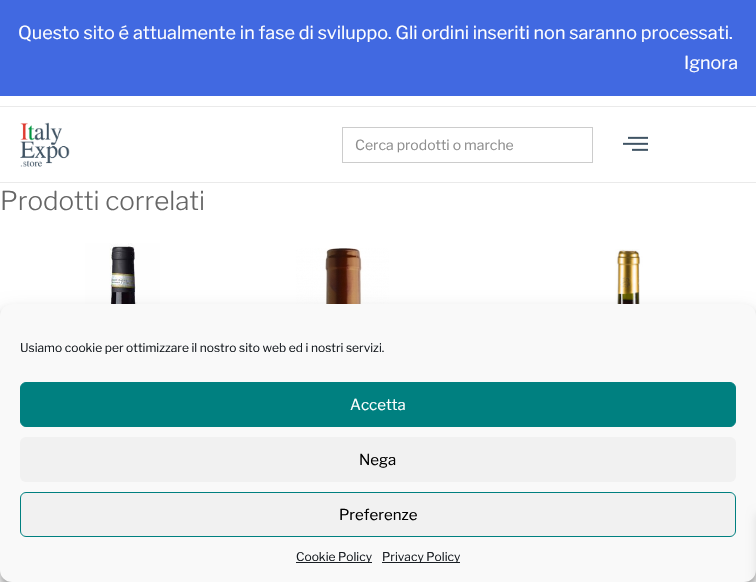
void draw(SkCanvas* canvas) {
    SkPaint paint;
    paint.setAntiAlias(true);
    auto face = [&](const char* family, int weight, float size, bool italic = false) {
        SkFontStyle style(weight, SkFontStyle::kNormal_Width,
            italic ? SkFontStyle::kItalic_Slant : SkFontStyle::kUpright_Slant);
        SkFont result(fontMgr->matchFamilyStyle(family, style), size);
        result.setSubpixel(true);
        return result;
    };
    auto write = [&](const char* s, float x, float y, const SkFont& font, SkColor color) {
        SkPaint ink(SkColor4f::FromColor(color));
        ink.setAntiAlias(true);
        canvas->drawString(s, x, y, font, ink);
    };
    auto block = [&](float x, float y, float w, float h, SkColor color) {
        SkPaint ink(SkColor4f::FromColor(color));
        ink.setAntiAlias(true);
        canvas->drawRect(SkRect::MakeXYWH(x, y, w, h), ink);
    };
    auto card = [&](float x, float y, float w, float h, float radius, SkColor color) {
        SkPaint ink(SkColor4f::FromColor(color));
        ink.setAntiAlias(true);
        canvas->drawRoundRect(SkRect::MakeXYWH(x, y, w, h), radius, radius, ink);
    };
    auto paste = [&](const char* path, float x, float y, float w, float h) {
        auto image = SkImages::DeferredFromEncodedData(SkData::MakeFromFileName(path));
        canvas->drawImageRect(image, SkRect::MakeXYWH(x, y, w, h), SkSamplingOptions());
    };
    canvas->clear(SK_ColorWHITE);
    block(0, 0, 756, 96, SkColorSetRGB(65, 105, 225));
    auto kFont1 = face("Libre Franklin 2", 100, 18);
    write("Questo sito é attualmente in fase di sviluppo. Gli ordini inseriti non saranno processati.", 18, 39, kFont1, SK_ColorWHITE);
    write("Ignora", 684, 69, kFont1, SK_ColorWHITE);
    block(0, 106, 756, 1, SkColorSetRGB(234, 234, 234));
    block(0, 182, 756, 1, SkColorSetRGB(234, 234, 234));
    paste("pic1.png", 20, 122, 50, 45);
    paint.setStyle(SkPaint::kStroke_Style);
    paint.setStrokeWidth(1);
    paint.setColor(SkColorSetRGB(204, 204, 204));
    canvas->drawRect(SkRect::MakeXYWH(342.5f, 127.5f, 250, 35), paint);
    auto kFont2 = face("Libre Franklin 2", 100, 14);
    write("Cerca prodotti o marche", 355, 150, kFont2, SkColorSetRGB(142, 142, 142));
    paste("pic2.png", 623, 136, 25, 15);
    auto kFont3 = face("Libre Franklin", 100, 26);
    write("Prodotti correlati", 0, 210, kFont3, SkColorSetRGB(102, 102, 102));
    paste("pic3.png", 85, 243, 75, 61);
    paste("pic4.png", 296, 248, 93, 56);
    paste("pic5.png", 538, 249, 181, 55);
    paint.setStyle(SkPaint::kFill_Style);
    paint.setColor(SkColorSetARGB(59, 0, 0, 0));
    paint.setMaskFilter(SkMaskFilter::MakeBlur(kNormal_SkBlurStyle, 3));
    canvas->drawRoundRect(SkRect::MakeXYWH(0, 310, 756, 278), 12, 12, paint);
    paint.setMaskFilter(nullptr);
    paint.setColor(SkColorSetARGB(48, 0, 0, 0));
    paint.setMaskFilter(SkMaskFilter::MakeBlur(kNormal_SkBlurStyle, 10));
    canvas->drawRoundRect(SkRect::MakeXYWH(0, 314, 756, 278), 12, 12, paint);
    paint.setMaskFilter(nullptr);
    card(0, 304, 756, 278, 12, SkColorSetRGB(249, 249, 249));
    auto kFont4 = face("Libre Franklin 2", 100, 12);
    write("Usiamo cookie per ottimizzare il nostro sito web ed i nostri servizi.", 20, 352, kFont4, SkColorSetRGB(25, 30, 35));
    paint.setColor(SkColorSetRGB(0, 128, 128));
    canvas->drawRoundRect(SkRect::MakeXYWH(20.5f, 382.5f, 715, 44), 5.5f, 5.5f, paint);
    paint.setStyle(SkPaint::kStroke_Style);
    canvas->drawRoundRect(SkRect::MakeXYWH(20.5f, 382.5f, 715, 44), 5.5f, 5.5f, paint);
    auto kFont5 = face("Libre Franklin 2", 100, 15);
    write("Accetta", 350, 410, kFont5, SK_ColorWHITE);
    card(20, 437, 716, 45, 6, SkColorSetRGB(241, 241, 241));
    write("Nega", 359, 465, kFont5, SK_ColorBLACK);
    paint.setStyle(SkPaint::kFill_Style);
    paint.setColor(SkColorSetRGB(241, 241, 241));
    canvas->drawRoundRect(SkRect::MakeXYWH(20.5f, 492.5f, 715, 44), 5.5f, 5.5f, paint);
    paint.setStyle(SkPaint::kStroke_Style);
    paint.setColor(SkColorSetRGB(0, 128, 128));
    canvas->drawRoundRect(SkRect::MakeXYWH(20.5f, 492.5f, 715, 44), 5.5f, 5.5f, paint);
    write("Preferenze", 339, 520, kFont5, SK_ColorBLACK);
    block(296, 562, 76, 1, SkColorSetRGB(25, 30, 35));
    write("Cookie Policy", 296, 561, kFont4, SkColorSetRGB(25, 30, 35));
    block(382, 562, 78, 1, SkColorSetRGB(25, 30, 35));
    write("Privacy Policy", 382, 561, kFont4, SkColorSetRGB(25, 30, 35));
    paint.setStyle(SkPaint::kFill_Style);
    paint.setColor(SkColorSetARGB(26, 0, 0, 0));
    paint.setMaskFilter(SkMaskFilter::MakeBlur(kNormal_SkBlurStyle, 5));
    canvas->drawRect(SkRect::MakeXYWH(756, 514, 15, 67), paint);
    paint.setMaskFilter(nullptr);
}
